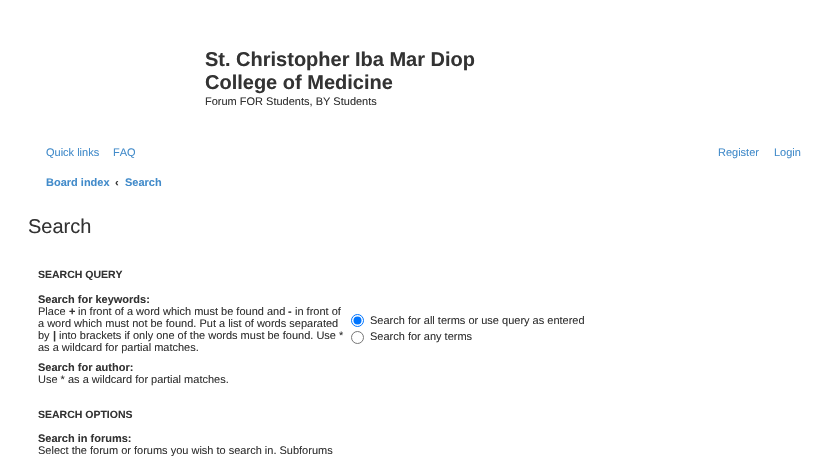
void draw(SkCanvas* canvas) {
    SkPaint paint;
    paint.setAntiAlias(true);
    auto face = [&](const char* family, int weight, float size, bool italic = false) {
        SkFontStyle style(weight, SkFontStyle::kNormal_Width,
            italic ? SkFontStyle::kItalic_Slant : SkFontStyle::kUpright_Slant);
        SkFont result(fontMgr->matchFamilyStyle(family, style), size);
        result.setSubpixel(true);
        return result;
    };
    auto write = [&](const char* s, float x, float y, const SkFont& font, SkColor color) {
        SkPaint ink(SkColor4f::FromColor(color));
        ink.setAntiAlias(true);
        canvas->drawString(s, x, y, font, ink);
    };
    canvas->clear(SK_ColorWHITE);
    auto kFont1 = face("Liberation Sans", 700, 20);
    write("St. Christopher Iba Mar Diop", 205, 66, kFont1, SkColorSetRGB(51, 51, 51));
    write("College of Medicine", 205, 89, kFont1, SkColorSetRGB(51, 51, 51));
    auto kFont2 = face("Liberation Sans", 400, 11);
    write("Forum FOR Students, BY Students", 205, 105, kFont2, SkColorSetRGB(51, 51, 51));
    write("Quick links", 46, 156, kFont2, SkColorSetRGB(66, 139, 202));
    write("FAQ", 113, 156, kFont2, SkColorSetRGB(66, 139, 202));
    write("Register", 718, 156, kFont2, SkColorSetRGB(66, 139, 202));
    write("Login", 774, 156, kFont2, SkColorSetRGB(66, 139, 202));
    auto kFont3 = face("Liberation Sans", 700, 11);
    write("Board index", 46, 186, kFont3, SkColorSetRGB(66, 139, 202));
    write("‹", 115, 186, kFont3, SkColorSetRGB(51, 51, 51));
    write("Search", 125, 186, kFont3, SkColorSetRGB(66, 139, 202));
    auto kFont4 = face("Liberation Sans", 400, 20);
    write("Search", 28, 233, kFont4, SkColorSetRGB(51, 51, 51));
    auto kFont5 = face("Liberation Sans", 700, 10.5f);
    write("SEARCH QUERY", 38, 278, kFont5, SkColorSetRGB(51, 51, 51));
    write("Search for keywords:", 38, 303, kFont3, SkColorSetRGB(51, 51, 51));
    write("Place", 38, 315, kFont2, SkColorSetRGB(51, 51, 51));
    write("+", 69, 315, kFont3, SkColorSetRGB(51, 51, 51));
    write("in front of a word which must be found and", 78, 315, kFont2, SkColorSetRGB(51, 51, 51));
    write("-", 288, 315, kFont3, SkColorSetRGB(51, 51, 51));
    write("in front of", 295, 315, kFont2, SkColorSetRGB(51, 51, 51));
    write("a word which must not be found. Put a list of words separated", 38, 327, kFont2, SkColorSetRGB(51, 51, 51));
    write("by", 38, 339, kFont2, SkColorSetRGB(51, 51, 51));
    write("|", 53, 339, kFont3, SkColorSetRGB(51, 51, 51));
    write("into brackets if only one of the words must be found. Use *", 59, 339, kFont2, SkColorSetRGB(51, 51, 51));
    write("as a wildcard for partial matches.", 38, 351, kFont2, SkColorSetRGB(51, 51, 51));
    paint.setStyle(SkPaint::kStroke_Style);
    paint.setStrokeWidth(1);
    paint.setColor(SkColorSetRGB(0, 117, 255));
    canvas->drawCircle(357.5f, 320.5f, 6, paint);
    paint.setStyle(SkPaint::kFill_Style);
    canvas->drawCircle(357.5f, 320.5f, 4, paint);
    write("Search for all terms or use query as entered", 370, 324, kFont2, SkColorSetRGB(51, 51, 51));
    paint.setStyle(SkPaint::kStroke_Style);
    paint.setColor(SkColorSetRGB(118, 118, 118));
    canvas->drawCircle(357.5f, 337.5f, 6, paint);
    write("Search for any terms", 370, 340, kFont2, SkColorSetRGB(51, 51, 51));
    write("Search for author:", 38, 371, kFont3, SkColorSetRGB(51, 51, 51));
    write("Use * as a wildcard for partial matches.", 38, 383, kFont2, SkColorSetRGB(51, 51, 51));
    write("SEARCH OPTIONS", 38, 418, kFont5, SkColorSetRGB(51, 51, 51));
    write("Search in forums:", 38, 442, kFont3, SkColorSetRGB(51, 51, 51));
    write("Select the forum or forums you wish to search in. Subforums", 38, 454, kFont2, SkColorSetRGB(51, 51, 51));
}
